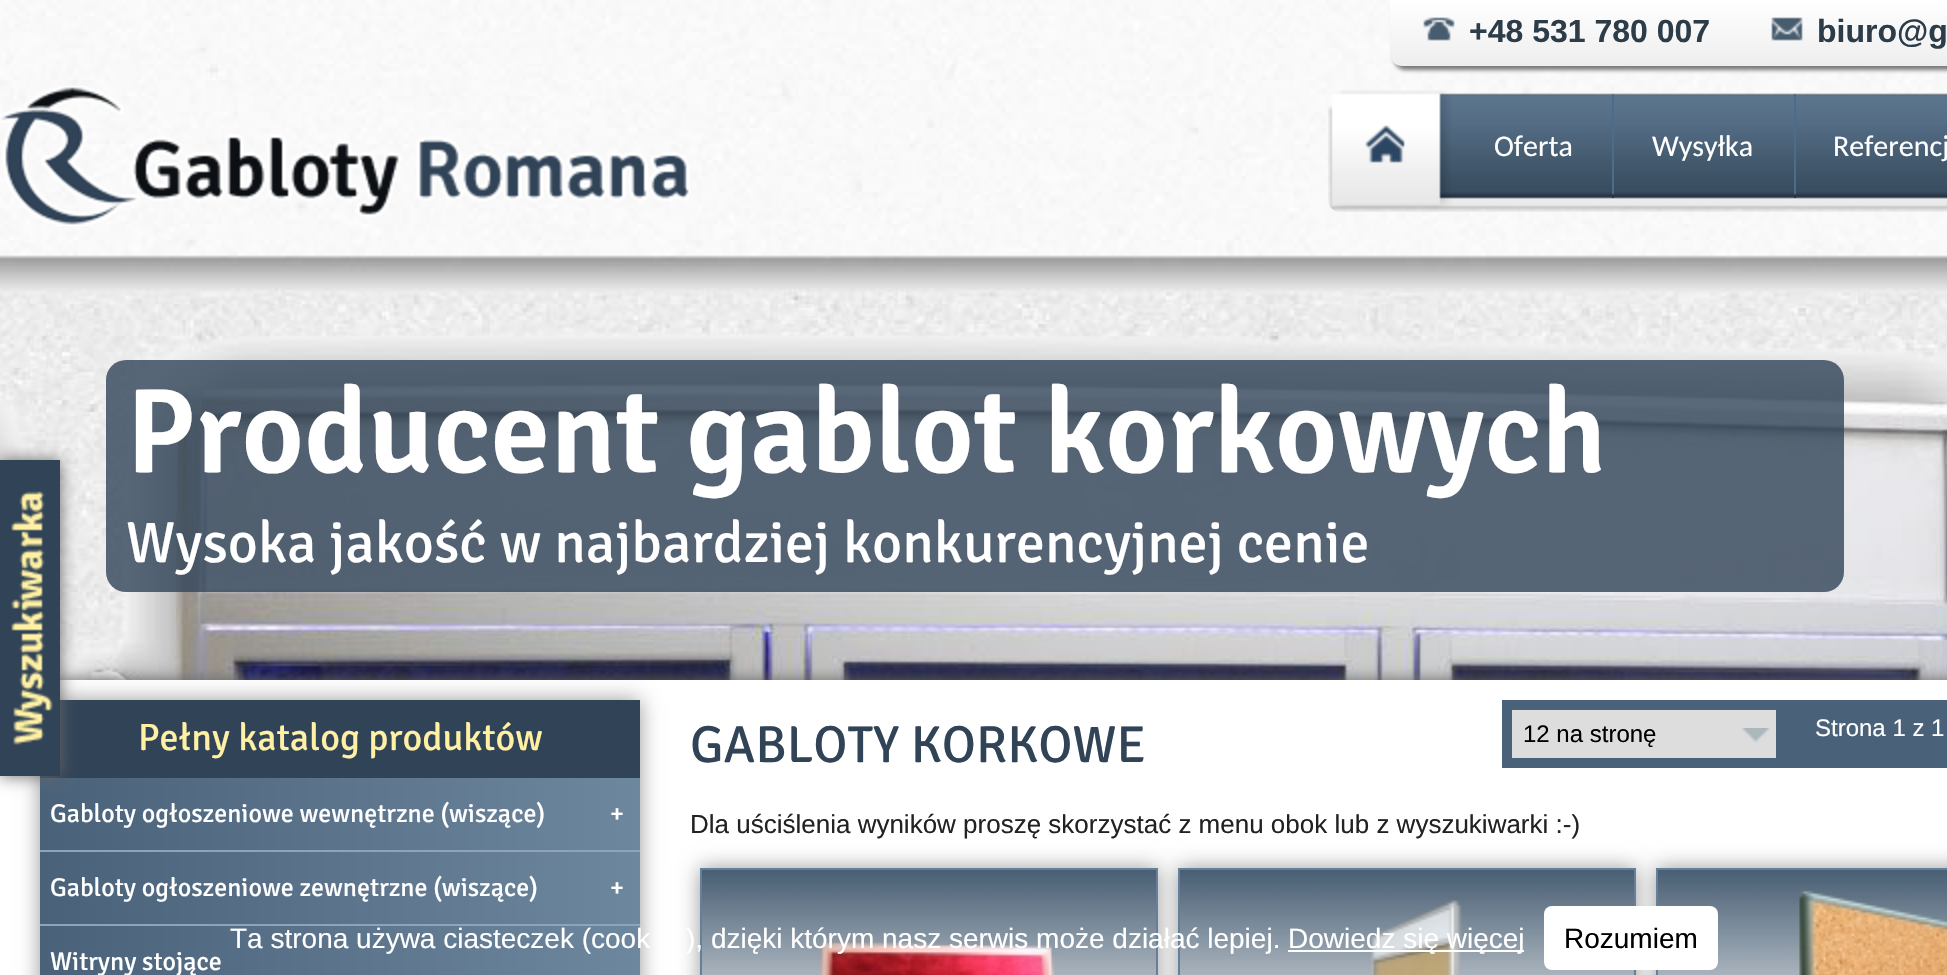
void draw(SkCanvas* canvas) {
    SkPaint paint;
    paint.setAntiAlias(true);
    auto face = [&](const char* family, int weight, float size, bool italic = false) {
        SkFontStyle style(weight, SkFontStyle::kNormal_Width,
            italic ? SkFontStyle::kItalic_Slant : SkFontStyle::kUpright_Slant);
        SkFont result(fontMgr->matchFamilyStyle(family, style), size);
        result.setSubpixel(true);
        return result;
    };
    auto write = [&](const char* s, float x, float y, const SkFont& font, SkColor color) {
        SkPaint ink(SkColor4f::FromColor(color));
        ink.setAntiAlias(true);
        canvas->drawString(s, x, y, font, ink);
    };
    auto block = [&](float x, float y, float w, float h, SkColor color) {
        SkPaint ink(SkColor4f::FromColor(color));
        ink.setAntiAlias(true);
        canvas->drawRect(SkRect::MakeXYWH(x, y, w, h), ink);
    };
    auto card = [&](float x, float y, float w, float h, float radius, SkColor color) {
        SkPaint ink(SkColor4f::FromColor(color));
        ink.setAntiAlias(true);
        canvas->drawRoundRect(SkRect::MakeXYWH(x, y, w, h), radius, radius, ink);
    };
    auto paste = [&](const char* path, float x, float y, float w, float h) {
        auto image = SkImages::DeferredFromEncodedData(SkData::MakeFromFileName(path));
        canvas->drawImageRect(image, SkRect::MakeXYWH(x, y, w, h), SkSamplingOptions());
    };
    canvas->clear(SK_ColorWHITE);
    paste("pic12.png", 0, 0, 1947, 680);
    paint.setColor(SkColorSetRGB(119, 119, 119));
    paint.setMaskFilter(SkMaskFilter::MakeBlur(kNormal_SkBlurStyle, 2));
    canvas->drawRoundRect(SkRect::MakeXYWH(1394, 4, 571, 66), 12, 12, paint);
    paint.setMaskFilter(nullptr);
    {
        const SkColor colors[] = {SK_ColorWHITE, SkColorSetRGB(238, 238, 238)};
        const float stops[] = {0, 1};
        const SkPoint ends[] = {{1785, 0}, {1785, 66}};
        paint.setShader(SkGradientShader::MakeLinear(ends, colors, stops, 2, SkTileMode::kClamp));
        paint.setAlpha(255);
    }
    canvas->drawPath(SkPathBuilder().moveTo(1390, 0).lineTo(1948, 0).lineTo(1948, 66).lineTo(1402, 66).cubicTo(1395.5f, 66, 1390, 60.5f, 1390, 54).close().detach(), paint);
    paste("pic1.png", 1423, 17, 32, 24);
    auto kFont1 = face("Liberation Sans", 700, 32);
    write("+48 531 780 007", 1469, 42, kFont1, SkColorSetRGB(44, 60, 73));
    paste("pic2.png", 1771, 17, 32, 24);
    write("biuro@g", 1817, 42, kFont1, SkColorSetRGB(44, 60, 73));
    paste("pic3.png", 0, 86, 690, 140);
    paste("pic4.png", 1454, 93, 493, 119);
    paste("pic5.png", 1328, 90, 126, 122);
    auto kFont2 = face("Carlito", 400, 30);
    write("Oferta", 1494, 156, kFont2, SK_ColorWHITE);
    paste("pic6.png", 1612, 94, 2, 104);
    write("Wysyłka", 1652, 156, kFont2, SK_ColorWHITE);
    paste("pic6.png", 1794, 94, 2, 104);
    write("Referencj", 1833, 156, kFont2, SK_ColorWHITE);
    paint.setShader(nullptr);
    paint.setColor(SkColorSetRGB(102, 102, 102));
    paint.setMaskFilter(SkMaskFilter::MakeBlur(kNormal_SkBlurStyle, 8));
    canvas->drawRoundRect(SkRect::MakeXYWH(0, 680, 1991, 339), 20, 20, paint);
    paint.setMaskFilter(nullptr);
    block(0, 680, 1947, 295, SK_ColorWHITE);
    canvas->save();
    canvas->clipPath(SkPathBuilder().moveTo(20, 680).lineTo(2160, 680).cubicTo(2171, 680, 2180, 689, 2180, 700).lineTo(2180, 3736).cubicTo(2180, 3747, 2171, 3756, 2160, 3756).lineTo(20, 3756).cubicTo(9, 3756, 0, 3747, 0, 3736).lineTo(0, 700).cubicTo(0, 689, 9, 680, 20, 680).close().detach(), true);
    paint.setColor(SkColorSetRGB(153, 153, 153));
    paint.setMaskFilter(SkMaskFilter::MakeBlur(kNormal_SkBlurStyle, 10));
    canvas->drawRect(SkRect::MakeXYWH(40, 700, 600, 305), paint);
    paint.setMaskFilter(nullptr);
    canvas->restore();
    block(40, 700, 600, 78, SkColorSetRGB(49, 67, 87));
    auto kFont3 = face("Signika", 400, 38);
    write("Pełny katalog produktów", 138, 750, kFont3, SkColorSetRGB(255, 240, 164));
    {
        const SkColor colors[] = {SkColorSetRGB(74, 98, 121), SkColorSetRGB(109, 135, 158)};
        const float stops[] = {0, 1};
        const SkPoint ends[] = {{40, 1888}, {640, 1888}};
        paint.setShader(SkGradientShader::MakeLinear(ends, colors, stops, 2, SkTileMode::kClamp));
        paint.setAlpha(255);
    }
    canvas->drawRect(SkRect::MakeXYWH(40, 778, 600, 197), paint);
    block(40, 850, 600, 2, SkColorSetRGB(142, 164, 183));
    auto kFont4 = face("Signika", 400, 26);
    write("Gabloty ogłoszeniowe wewnętrzne (wiszące)", 50, 822, kFont4, SK_ColorWHITE);
    write("+", 610, 822, kFont4, SK_ColorWHITE);
    block(40, 924, 600, 2, SkColorSetRGB(142, 164, 183));
    write("Gabloty ogłoszeniowe zewnętrzne (wiszące)", 50, 896, kFont4, SK_ColorWHITE);
    write("+", 610, 896, kFont4, SK_ColorWHITE);
    write("Witryny stojące", 50, 970, kFont4, SK_ColorWHITE);
    block(1502, 700, 445, 68, SkColorSetRGB(74, 98, 121));
    paint.setStyle(SkPaint::kStroke_Style);
    paint.setStrokeWidth(2);
    paint.setShader(nullptr);
    paint.setColor(SkColorSetRGB(221, 221, 221));
    canvas->drawRect(SkRect::MakeXYWH(1513, 711, 262, 46), paint);
    block(1514, 712, 260, 44, SkColorSetRGB(221, 221, 221));
    paste("pic7.png", 1742, 728, 28, 14);
    auto kFont5 = face("Liberation Sans", 400, 24);
    write("12 na stronę", 1523, 742, kFont5, SK_ColorBLACK);
    write("Strona 1 z 1", 1815, 736, kFont5, SK_ColorWHITE);
    auto kFont6 = face("Signika", 400, 52);
    write("GABLOTY KORKOWE", 690, 762, kFont6, SkColorSetRGB(49, 67, 87));
    auto kFont7 = face("Liberation Sans", 400, 26);
    write("Dla uściślenia wyników proszę skorzystać z menu obok lub z wyszukiwarki :-)", 690, 833, kFont7, SkColorSetRGB(34, 34, 34));
    paint.setStyle(SkPaint::kFill_Style);
    paint.setColor(SkColorSetRGB(153, 153, 153));
    paint.setMaskFilter(SkMaskFilter::MakeBlur(kNormal_SkBlurStyle, 10));
    canvas->drawRect(SkRect::MakeXYWH(700, 868, 458, 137), paint);
    paint.setMaskFilter(nullptr);
    paint.setStyle(SkPaint::kStroke_Style);
    paint.setColor(SkColorSetRGB(101, 128, 155));
    canvas->drawRect(SkRect::MakeXYWH(701, 869, 456, 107), paint);
    paint.setStyle(SkPaint::kFill_Style);
    paint.setColor(SkColorSetRGB(153, 153, 153));
    paint.setMaskFilter(SkMaskFilter::MakeBlur(kNormal_SkBlurStyle, 10));
    canvas->drawRect(SkRect::MakeXYWH(1178, 868, 458, 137), paint);
    paint.setMaskFilter(nullptr);
    paste("pic8.png", 702, 870, 454, 105);
    paint.setStyle(SkPaint::kStroke_Style);
    paint.setColor(SkColorSetRGB(101, 128, 155));
    canvas->drawRect(SkRect::MakeXYWH(1179, 869, 456, 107), paint);
    paint.setStyle(SkPaint::kFill_Style);
    paint.setColor(SkColorSetRGB(153, 153, 153));
    paint.setMaskFilter(SkMaskFilter::MakeBlur(kNormal_SkBlurStyle, 10));
    canvas->drawRect(SkRect::MakeXYWH(1656, 868, 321, 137), paint);
    paint.setMaskFilter(nullptr);
    paste("pic9.png", 1180, 870, 454, 105);
    paint.setStyle(SkPaint::kStroke_Style);
    paint.setColor(SkColorSetRGB(101, 128, 155));
    canvas->drawRect(SkRect::MakeXYWH(1657, 869, 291, 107), paint);
    paste("pic10.png", 1658, 870, 289, 105);
    paint.setStyle(SkPaint::kFill_Style);
    paint.setColor(SkColorSetRGB(102, 102, 102));
    paint.setMaskFilter(SkMaskFilter::MakeBlur(kNormal_SkBlurStyle, 8));
    canvas->drawRect(SkRect::MakeXYWH(0, 460, 60, 316), paint);
    paint.setMaskFilter(nullptr);
    paste("pic11.png", 0, 460, 60, 316);
    card(106, 360, 1738, 232, 20, SkColorSetARGB(204, 49, 67, 87));
    auto kFont8 = face("Signika", 600, 120);
    write("Producent gablot korkowych", 126, 472, kFont8, SK_ColorWHITE);
    auto kFont9 = face("Signika", 400, 58);
    write("Wysoka jakość w najbardziej konkurencyjnej cenie", 126, 562, kFont9, SK_ColorWHITE);
    auto kFont10 = face("Liberation Sans", 400, 28);
    write("Ta strona używa ciasteczek (cook", 230, 948, kFont10, SK_ColorWHITE);
    write("), dzięki którym nasz serwis może działać lepiej.", 686, 948, kFont10, SK_ColorWHITE);
    block(1288, 950, 236, 2, SK_ColorWHITE);
    write("Dowiedz się więcej", 1288, 948, kFont10, SK_ColorWHITE);
    card(1544, 906, 174, 64, 8, SK_ColorWHITE);
    write("Rozumiem", 1564, 948, kFont10, SK_ColorBLACK);
}
